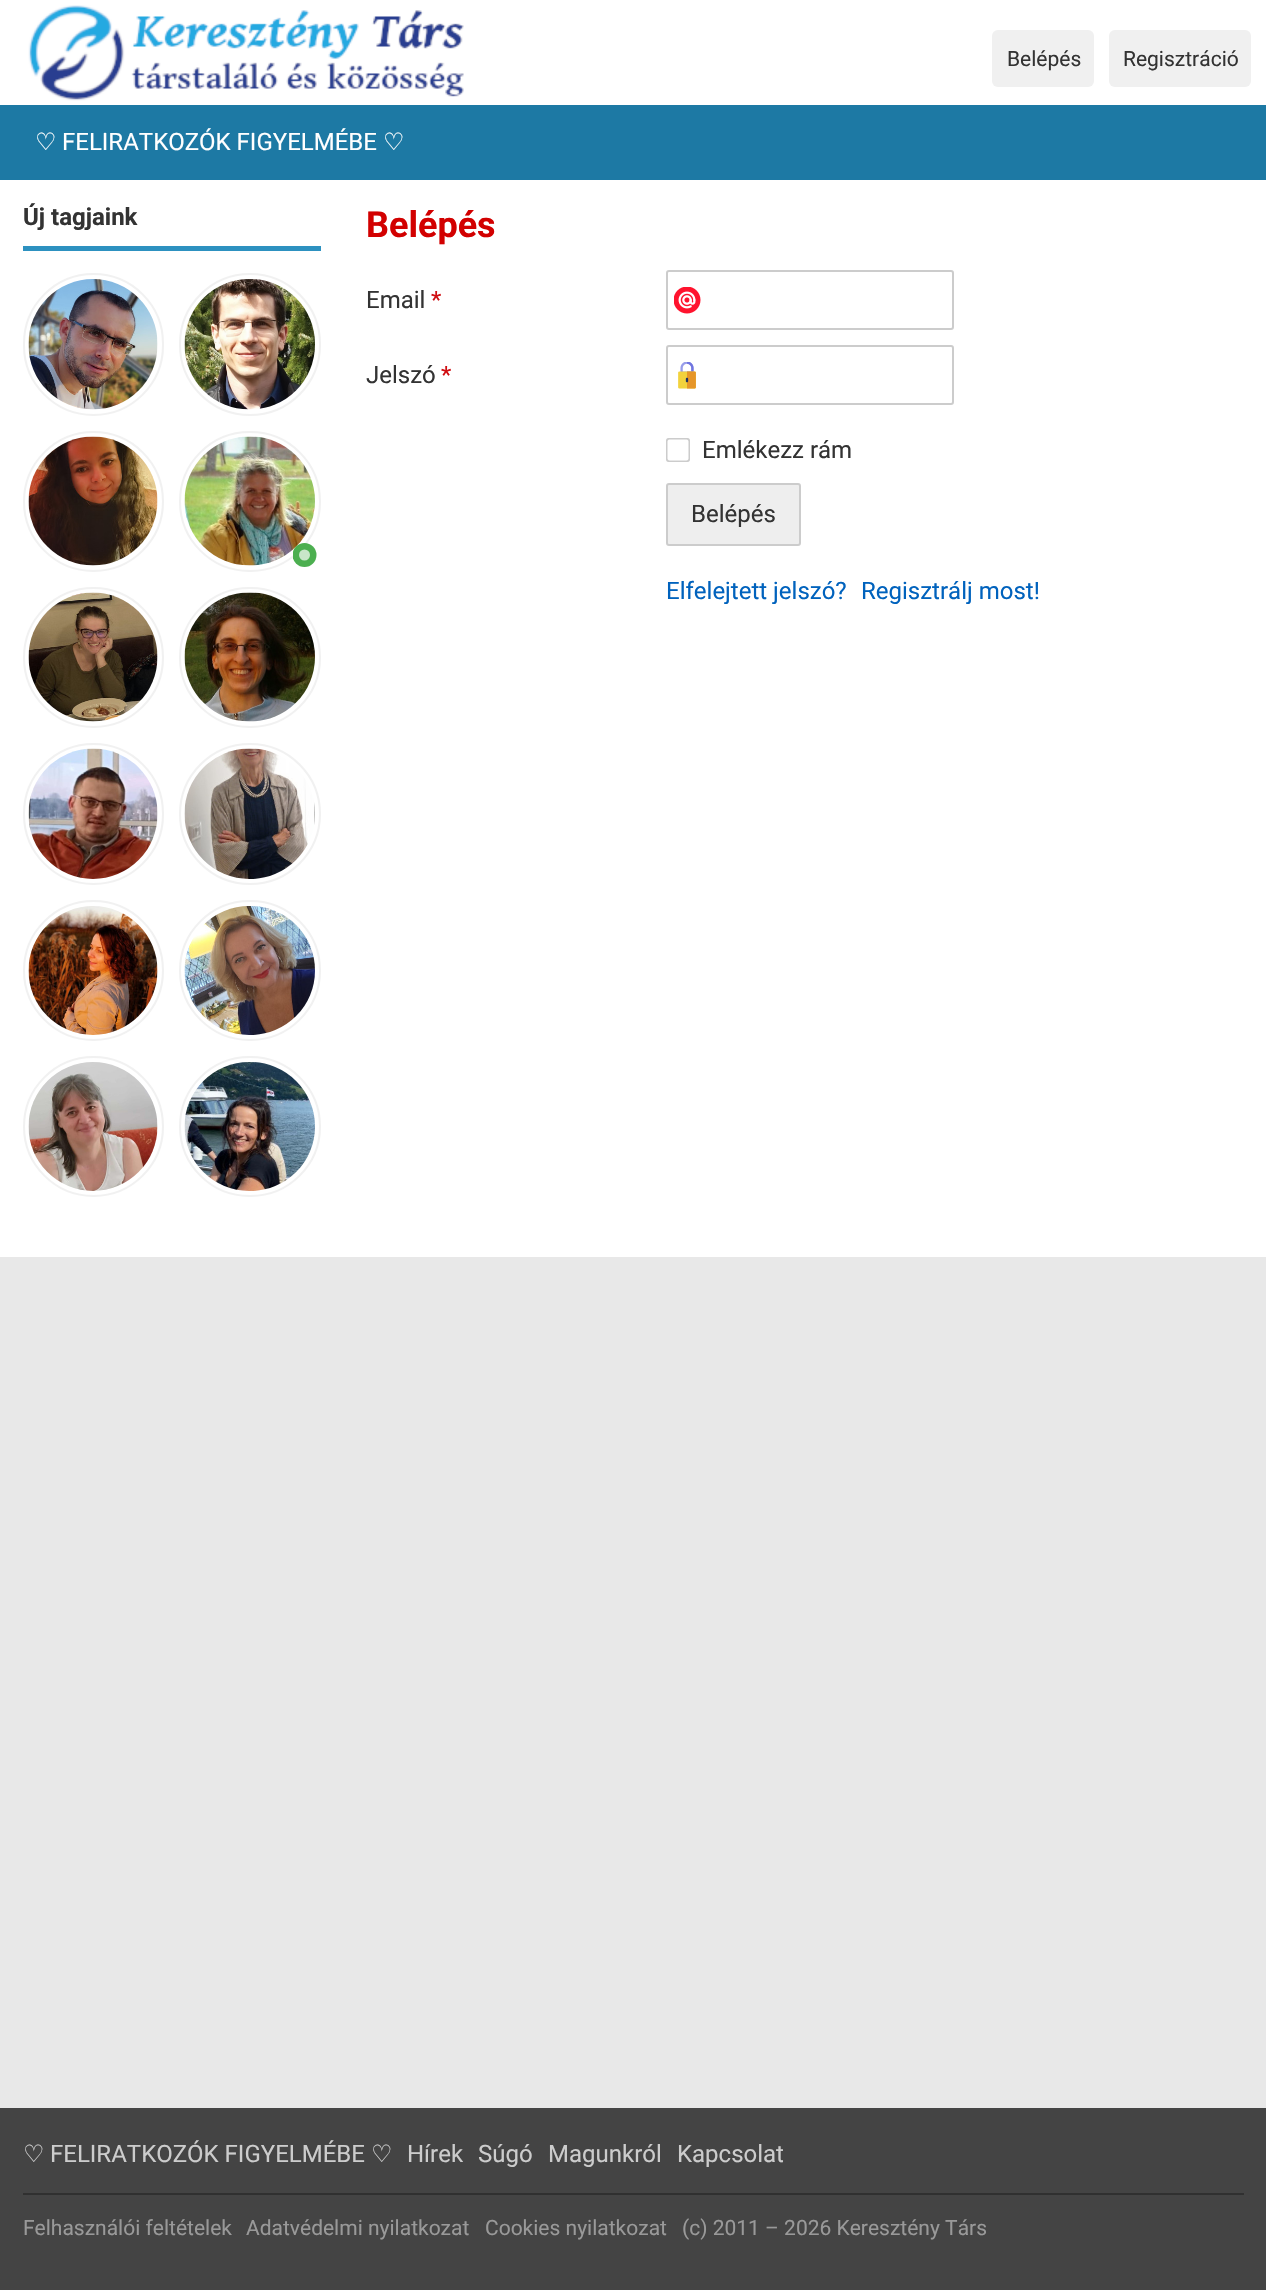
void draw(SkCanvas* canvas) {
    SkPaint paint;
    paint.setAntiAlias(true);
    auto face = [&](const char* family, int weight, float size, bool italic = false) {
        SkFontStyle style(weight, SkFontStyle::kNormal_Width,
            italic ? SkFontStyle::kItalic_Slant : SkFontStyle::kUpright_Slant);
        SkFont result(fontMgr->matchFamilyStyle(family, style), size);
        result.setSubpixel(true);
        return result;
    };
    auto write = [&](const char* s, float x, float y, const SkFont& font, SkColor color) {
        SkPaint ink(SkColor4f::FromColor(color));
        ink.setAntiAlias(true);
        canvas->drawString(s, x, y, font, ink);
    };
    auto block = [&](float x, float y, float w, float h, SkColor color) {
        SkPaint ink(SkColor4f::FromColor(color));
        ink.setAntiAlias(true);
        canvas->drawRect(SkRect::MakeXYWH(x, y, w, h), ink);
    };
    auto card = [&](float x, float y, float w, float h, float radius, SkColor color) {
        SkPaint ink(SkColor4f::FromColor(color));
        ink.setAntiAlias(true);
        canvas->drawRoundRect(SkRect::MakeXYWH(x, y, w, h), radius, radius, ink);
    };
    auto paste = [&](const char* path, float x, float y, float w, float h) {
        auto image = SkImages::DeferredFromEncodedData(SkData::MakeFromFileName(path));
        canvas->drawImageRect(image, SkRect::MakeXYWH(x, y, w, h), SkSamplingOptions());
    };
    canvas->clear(SkColorSetRGB(232, 232, 232));
    block(0, 0, 1266, 105, SK_ColorWHITE);
    paste("pic1.png", 28, 5, 436, 96);
    block(0, 105, 1266, 75, SkColorSetRGB(29, 121, 164));
    card(992, 30, 102, 57, 6, SkColorSetRGB(240, 240, 240));
    auto kFont1 = face("Roboto", 400, 21);
    write("Belépés", 1007, 66, kFont1, SkColorSetRGB(51, 51, 51));
    card(1109, 30, 142, 57, 6, SkColorSetRGB(240, 240, 240));
    write("Regisztráció", 1123, 66, kFont1, SkColorSetRGB(51, 51, 51));
    auto kFont2 = face("DejaVu Sans", 400, 24);
    write("♡", 35, 150, kFont2, SK_ColorWHITE);
    auto kFont3 = face("Roboto", 400, 24);
    write("FELIRATKOZÓK FIGYELMÉBE", 62, 150, kFont3, SK_ColorWHITE);
    write("♡", 383, 150, kFont2, SK_ColorWHITE);
    block(0, 180, 1266, 1077, SK_ColorWHITE);
    block(23, 246, 298, 5, SkColorSetRGB(45, 145, 192));
    auto kFont4 = face("Roboto", 700, 24);
    write("Új tagjaink", 23, 225, kFont4, SkColorSetRGB(51, 51, 51));
    paint.setStyle(SkPaint::kStroke_Style);
    paint.setStrokeWidth(2);
    paint.setColor(SkColorSetRGB(241, 241, 241));
    canvas->drawRoundRect(SkRect::MakeXYWH(24, 274, 139, 141), 69.5f, 69.5f, paint);
    paste("pic2.png", 28, 279, 130, 131);
    canvas->drawRoundRect(SkRect::MakeXYWH(180, 274, 140, 141), 70, 70, paint);
    paste("pic3.png", 184, 279, 131, 131);
    canvas->drawCircle(93.5f, 501.5f, 69.5f, paint);
    paste("pic4.png", 28, 436, 130, 130);
    canvas->drawRoundRect(SkRect::MakeXYWH(180, 432, 140, 139), 69.5f, 69.5f, paint);
    paste("pic5.png", 184, 436, 131, 130);
    canvas->save();
    canvas->clipRect(SkRect::MakeXYWH(293, 543, 24, 24));
    paint.setStyle(SkPaint::kFill_Style);
    paint.setColor(SkColorSetRGB(76, 175, 80));
    canvas->drawCircle(304.5f, 555, 12, paint);
    canvas->restore();
    paint.setColor(SkColorSetRGB(200, 230, 201));
    canvas->drawCircle(304.5f, 555, 5.5f, paint);
    paint.setStyle(SkPaint::kStroke_Style);
    paint.setColor(SkColorSetRGB(241, 241, 241));
    canvas->drawCircle(93.5f, 657.5f, 69.5f, paint);
    paste("pic6.png", 28, 592, 130, 130);
    canvas->drawRoundRect(SkRect::MakeXYWH(180, 588, 140, 139), 69.5f, 69.5f, paint);
    paste("pic7.png", 184, 592, 131, 130);
    canvas->drawRoundRect(SkRect::MakeXYWH(24, 744, 139, 140), 69.5f, 69.5f, paint);
    paste("pic8.png", 28, 748, 130, 131);
    canvas->drawCircle(250, 814, 70, paint);
    paste("pic9.png", 184, 748, 131, 131);
    canvas->drawCircle(93.5f, 970.5f, 69.5f, paint);
    paste("pic10.png", 28, 906, 130, 129);
    canvas->drawRoundRect(SkRect::MakeXYWH(180, 901, 140, 139), 69.5f, 69.5f, paint);
    paste("pic11.png", 184, 906, 131, 129);
    canvas->drawCircle(93.5f, 1126.5f, 69.5f, paint);
    paste("pic12.png", 28, 1062, 130, 129);
    canvas->drawRoundRect(SkRect::MakeXYWH(180, 1057, 140, 139), 69.5f, 69.5f, paint);
    paste("pic13.png", 184, 1062, 131, 129);
    auto kFont5 = face("Roboto", 700, 36);
    write("Belépés", 366, 237, kFont5, SkColorSetRGB(210, 0, 0));
    write("Email", 366, 308, kFont3, SkColorSetRGB(51, 51, 51));
    write("*", 431, 308, kFont3, SkColorSetRGB(208, 14, 18));
    paste("pic14.png", 674, 287, 27, 27);
    paint.setColor(SkColorSetRGB(204, 204, 204));
    canvas->drawRoundRect(SkRect::MakeXYWH(667, 271, 286, 58), 2, 2, paint);
    write("Jelszó", 366, 383, kFont3, SkColorSetRGB(51, 51, 51));
    write("*", 441, 383, kFont3, SkColorSetRGB(208, 14, 18));
    paste("pic15.png", 678, 362, 18, 27);
    canvas->drawRoundRect(SkRect::MakeXYWH(667, 346, 286, 58), 2, 2, paint);
    paste("pic16.png", 666, 438, 24, 24);
    write("Emlékezz rám", 702, 458, kFont3, SkColorSetRGB(51, 51, 51));
    paint.setStyle(SkPaint::kFill_Style);
    paint.setColor(SkColorSetRGB(238, 238, 238));
    canvas->drawRoundRect(SkRect::MakeXYWH(667, 484, 133, 61), 2, 2, paint);
    paint.setStyle(SkPaint::kStroke_Style);
    paint.setColor(SkColorSetRGB(204, 204, 204));
    canvas->drawRoundRect(SkRect::MakeXYWH(667, 484, 133, 61), 2, 2, paint);
    write("Belépés", 691, 522, kFont3, SkColorSetRGB(51, 51, 51));
    write("Elfelejtett jelszó?", 666, 599, kFont3, SkColorSetRGB(0, 98, 189));
    write("Regisztrálj most!", 861, 599, kFont3, SkColorSetRGB(0, 98, 189));
    block(0, 2108, 1266, 182, SkColorSetRGB(68, 68, 68));
    write("♡", 23, 2162, kFont2, SkColorSetRGB(204, 204, 204));
    write("FELIRATKOZÓK FIGYELMÉBE", 50, 2162, kFont3, SkColorSetRGB(204, 204, 204));
    write("♡", 371, 2162, kFont2, SkColorSetRGB(204, 204, 204));
    write("Hírek", 407, 2162, kFont3, SkColorSetRGB(204, 204, 204));
    write("Súgó", 478, 2162, kFont3, SkColorSetRGB(204, 204, 204));
    write("Magunkról", 548, 2162, kFont3, SkColorSetRGB(204, 204, 204));
    write("Kapcsolat", 677, 2162, kFont3, SkColorSetRGB(204, 204, 204));
    block(23, 2193, 1221, 2, SkColorSetRGB(48, 48, 48));
    write("Felhasználói feltételek", 23, 2235, kFont1, SkColorSetRGB(153, 153, 153));
    write("Adatvédelmi nyilatkozat", 246, 2235, kFont1, SkColorSetRGB(153, 153, 153));
    write("Cookies nyilatkozat", 485, 2235, kFont1, SkColorSetRGB(153, 153, 153));
    write("(c) 2011 – 2026 Keresztény Társ", 682, 2235, kFont1, SkColorSetRGB(153, 153, 153));
}
